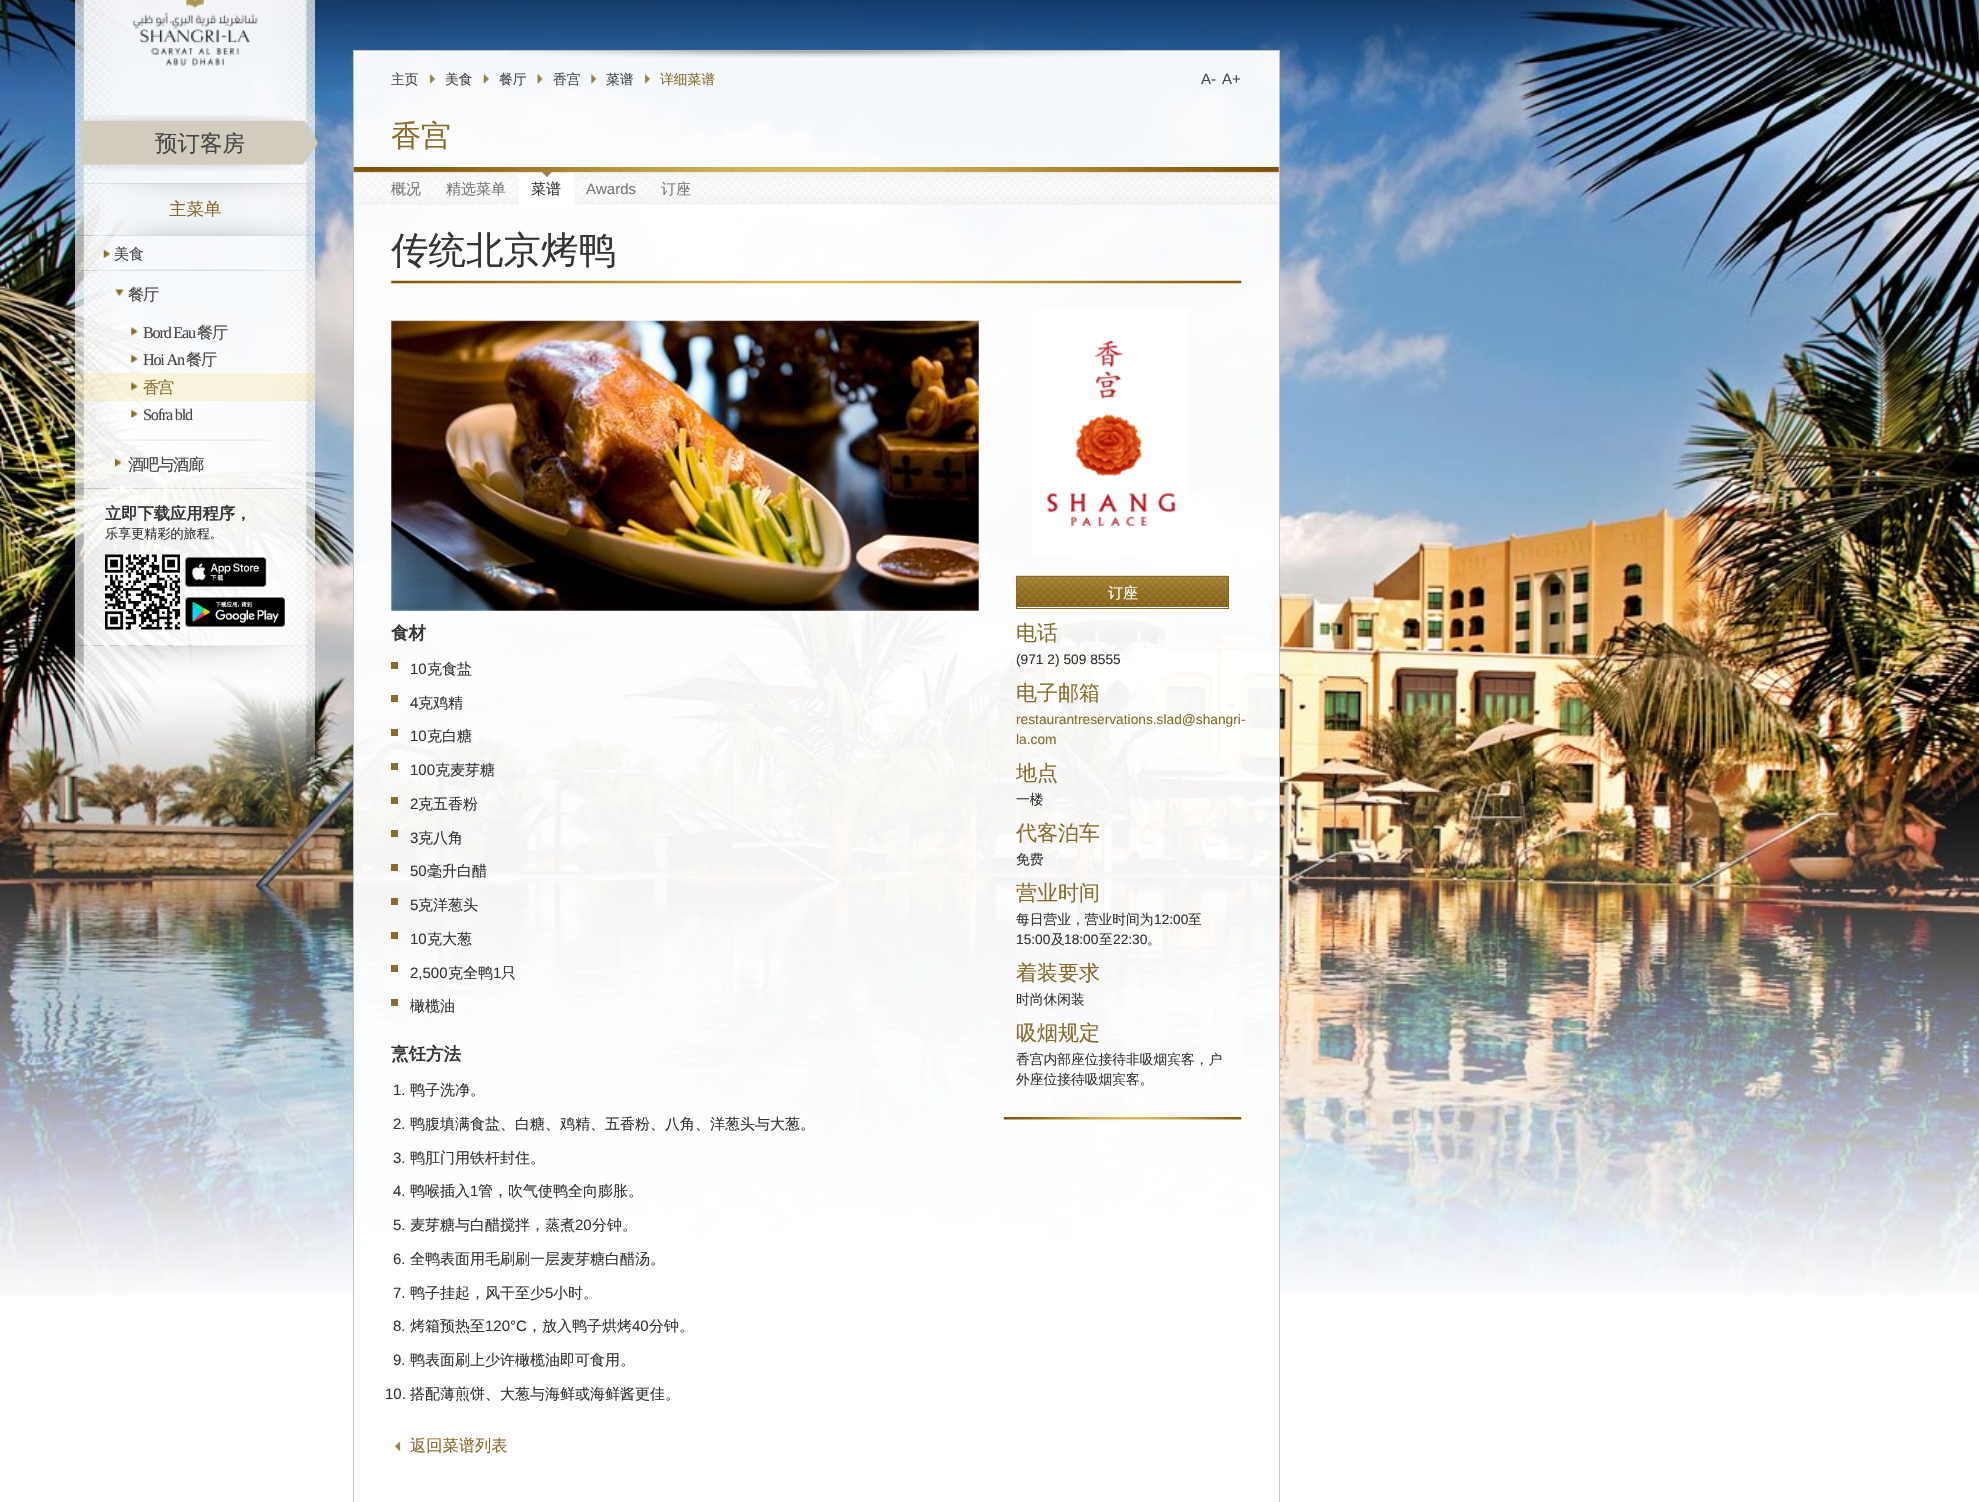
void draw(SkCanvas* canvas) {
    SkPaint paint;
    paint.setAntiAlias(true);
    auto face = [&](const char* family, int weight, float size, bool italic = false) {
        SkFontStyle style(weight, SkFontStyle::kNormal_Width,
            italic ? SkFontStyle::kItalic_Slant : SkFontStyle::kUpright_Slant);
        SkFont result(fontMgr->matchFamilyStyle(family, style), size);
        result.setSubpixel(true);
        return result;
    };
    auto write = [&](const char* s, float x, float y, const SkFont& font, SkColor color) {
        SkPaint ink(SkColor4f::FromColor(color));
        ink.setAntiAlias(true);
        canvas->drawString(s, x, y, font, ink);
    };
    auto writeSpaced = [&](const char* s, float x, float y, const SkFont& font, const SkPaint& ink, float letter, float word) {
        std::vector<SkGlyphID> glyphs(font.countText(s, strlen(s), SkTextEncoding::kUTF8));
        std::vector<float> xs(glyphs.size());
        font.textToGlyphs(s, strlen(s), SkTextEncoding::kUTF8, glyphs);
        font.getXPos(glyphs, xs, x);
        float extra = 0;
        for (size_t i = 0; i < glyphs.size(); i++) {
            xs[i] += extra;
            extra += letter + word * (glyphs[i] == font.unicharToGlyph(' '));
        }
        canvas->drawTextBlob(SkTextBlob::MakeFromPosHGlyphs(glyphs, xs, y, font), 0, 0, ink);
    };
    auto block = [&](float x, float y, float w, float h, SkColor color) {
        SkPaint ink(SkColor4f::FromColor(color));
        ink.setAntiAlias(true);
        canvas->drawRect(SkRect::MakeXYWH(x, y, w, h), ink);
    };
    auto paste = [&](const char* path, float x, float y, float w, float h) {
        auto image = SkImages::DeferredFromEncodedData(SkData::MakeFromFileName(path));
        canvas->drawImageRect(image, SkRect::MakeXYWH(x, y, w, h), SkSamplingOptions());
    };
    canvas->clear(SK_ColorWHITE);
    paste("pic1.png", 0, 0, 1979, 1295);
    paste("pic2.png", 0, 0, 1979, 90);
    paste("pic3.png", 75, 0, 240, 102);
    paste("pic4.png", 132, 0, 126, 66);
    paste("pic5.png", 75, 102, 240, 82);
    paste("pic6.png", 81, 115, 237, 56);
    auto kFont1 = face("WenQuanYi Zen Hei", 500, 22.5f);
    write("预订客房", 155, 151, kFont1, SkColorSetRGB(70, 70, 70));
    paste("pic7.png", 75, 183, 240, 53);
    paste("pic8.png", 112, 183, 199, 53);
    auto kFont2 = face("WenQuanYi Zen Hei", 500, 17.5f);
    write("主菜单", 169, 215, kFont2, SkColorSetRGB(135, 108, 46));
    paste("pic9.png", 75, 235, 240, 36);
    paste("pic10.png", 116, 269, 158, 2);
    paste("pic11.png", 103, 249, 7, 10);
    auto kFont3 = face("WenQuanYi Zen Hei", 500, 15);
    write("美食", 114, 259, kFont3, SkColorSetRGB(70, 70, 70));
    paste("pic12.png", 75, 270, 240, 219);
    paste("pic13.png", 116, 439, 158, 2);
    paste("pic14.png", 115, 289, 9, 7);
    auto kFont4 = face("WenQuanYi Zen Hei", 500, 16.25f);
    paint.setColor(SkColorSetRGB(70, 70, 70));
    writeSpaced("餐厅", 128, 300, kFont4, paint, -1.25f, 0);
    paste("pic15.png", 131, 327, 7, 9);
    auto kFont5 = face("Liberation Serif", 400, 16.25f);
    writeSpaced("Bord Eau", 143, 338, kFont5, paint, -1.25f, 0);
    writeSpaced("餐厅", 197, 338, kFont4, paint, -1.25f, 0);
    paste("pic16.png", 131, 354, 7, 10);
    writeSpaced("Hoi An", 143, 365, kFont5, paint, -1.25f, 0);
    writeSpaced("餐厅", 186, 365, kFont4, paint, -1.25f, 0);
    block(75, 373, 240, 28, SkColorSetARGB(36, 241, 198, 28));
    paste("pic17.png", 131, 382, 7, 9);
    paint.setColor(SkColorSetRGB(135, 108, 46));
    writeSpaced("香宫", 143, 393, kFont4, paint, -1.25f, 0);
    paste("pic18.png", 131, 409, 7, 10);
    paint.setColor(SkColorSetRGB(70, 70, 70));
    writeSpaced("Sofra bld", 143, 420, kFont5, paint, -1.25f, 0);
    paste("pic19.png", 115, 458, 7, 9);
    writeSpaced("酒吧与酒廊", 128, 470, kFont4, paint, -1.25f, 0);
    paste("pic20.png", 75, 488, 240, 158);
    auto kFont6 = face("WenQuanYi Zen Hei", 700, 16.25f);
    write("立即下载应用程序，", 105, 519, kFont6, SkColorSetRGB(52, 52, 52));
    auto kFont7 = face("WenQuanYi Zen Hei", 500, 13.1f);
    write("乐享更精彩的旅程。", 105, 538, kFont7, SkColorSetRGB(52, 52, 52));
    paste("pic21.png", 105, 554, 75, 76);
    paste("pic22.png", 185, 557, 82, 30);
    paste("pic23.png", 185, 597, 100, 30);
    paste("pic24.png", 75, 645, 240, 160);
    paint.setStyle(SkPaint::kStroke_Style);
    paint.setStrokeWidth(1);
    paint.setColor(SkColorSetRGB(193, 193, 193));
    canvas->drawRect(SkRect::MakeXYWH(353.5f, 50.5f, 926, 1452), paint);
    block(354, 51, 925, 1244, SkColorSetARGB(242, 255, 255, 255));
    paste("pic25.png", 508, 50, 615, 8);
    auto kFont8 = face("WenQuanYi Zen Hei", 500, 13.75f);
    write("主页", 391, 84, kFont8, SkColorSetRGB(70, 70, 70));
    paste("pic26.png", 429, 74, 7, 10);
    write("美食", 445, 84, kFont8, SkColorSetRGB(70, 70, 70));
    paste("pic27.png", 483, 74, 6, 10);
    write("餐厅", 499, 84, kFont8, SkColorSetRGB(70, 70, 70));
    paste("pic28.png", 537, 74, 6, 10);
    write("香宫", 553, 84, kFont8, SkColorSetRGB(70, 70, 70));
    paste("pic29.png", 591, 74, 6, 10);
    write("菜谱", 606, 84, kFont8, SkColorSetRGB(70, 70, 70));
    paste("pic30.png", 644, 74, 7, 10);
    write("详细菜谱", 660, 84, kFont8, SkColorSetRGB(135, 108, 46));
    auto kFont9 = face("Liberation Sans", 400, 15);
    write("A-", 1201, 84, kFont9, SkColorSetRGB(70, 70, 70));
    write("A+", 1222, 84, kFont9, SkColorSetRGB(70, 70, 70));
    auto kFont10 = face("WenQuanYi Zen Hei", 500, 30);
    write("香宫", 391, 146, kFont10, SkColorSetRGB(135, 108, 46));
    paste("pic31.png", 353, 167, 926, 38);
    write("概况", 391, 194, kFont3, SkColorSetRGB(119, 119, 119));
    write("精选菜单", 446, 194, kFont3, SkColorSetRGB(119, 119, 119));
    block(519, 173, 55, 32, SK_ColorWHITE);
    paste("pic32.png", 542, 172, 10, 5);
    write("菜谱", 531, 194, kFont3, SkColorSetRGB(52, 52, 52));
    write("Awards", 586, 194, kFont9, SkColorSetRGB(119, 119, 119));
    write("订座", 661, 194, kFont3, SkColorSetRGB(119, 119, 119));
    auto kFont11 = face("WenQuanYi Zen Hei", 500, 37.5f);
    write("传统北京烤鸭", 391, 263, kFont11, SkColorSetRGB(52, 52, 52));
    paste("pic33.png", 391, 280, 851, 4);
    paste("pic34.png", 391, 320, 588, 291);
    auto kFont12 = face("WenQuanYi Zen Hei", 700, 17.5f);
    write("食材", 391, 639, kFont12, SkColorSetRGB(52, 52, 52));
    block(391, 662, 7, 7, SkColorSetRGB(134, 109, 45));
    write("10", 410, 674, kFont9, SkColorSetRGB(52, 52, 52));
    write("克食盐", 427, 674, kFont3, SkColorSetRGB(52, 52, 52));
    block(391, 695, 7, 7, SkColorSetRGB(134, 109, 45));
    write("4", 410, 708, kFont9, SkColorSetRGB(52, 52, 52));
    write("克鸡精", 418, 708, kFont3, SkColorSetRGB(52, 52, 52));
    block(391, 729, 7, 7, SkColorSetRGB(134, 109, 45));
    write("10", 410, 741, kFont9, SkColorSetRGB(52, 52, 52));
    write("克白糖", 427, 741, kFont3, SkColorSetRGB(52, 52, 52));
    block(391, 763, 7, 7, SkColorSetRGB(134, 109, 45));
    write("100", 410, 775, kFont9, SkColorSetRGB(52, 52, 52));
    write("克麦芽糖", 435, 775, kFont3, SkColorSetRGB(52, 52, 52));
    block(391, 797, 7, 7, SkColorSetRGB(134, 109, 45));
    write("2", 410, 809, kFont9, SkColorSetRGB(52, 52, 52));
    write("克五香粉", 418, 809, kFont3, SkColorSetRGB(52, 52, 52));
    block(391, 830, 7, 7, SkColorSetRGB(134, 109, 45));
    write("3", 410, 843, kFont9, SkColorSetRGB(52, 52, 52));
    write("克八角", 418, 843, kFont3, SkColorSetRGB(52, 52, 52));
    block(391, 864, 7, 7, SkColorSetRGB(134, 109, 45));
    write("50", 410, 876, kFont9, SkColorSetRGB(52, 52, 52));
    write("毫升白醋", 427, 876, kFont3, SkColorSetRGB(52, 52, 52));
    block(391, 898, 7, 7, SkColorSetRGB(134, 109, 45));
    write("5", 410, 910, kFont9, SkColorSetRGB(52, 52, 52));
    write("克洋葱头", 418, 910, kFont3, SkColorSetRGB(52, 52, 52));
    block(391, 932, 7, 7, SkColorSetRGB(134, 109, 45));
    write("10", 410, 944, kFont9, SkColorSetRGB(52, 52, 52));
    write("克大葱", 427, 944, kFont3, SkColorSetRGB(52, 52, 52));
    block(391, 965, 7, 7, SkColorSetRGB(134, 109, 45));
    write("2,500", 410, 978, kFont9, SkColorSetRGB(52, 52, 52));
    write("克全鸭", 448, 978, kFont3, SkColorSetRGB(52, 52, 52));
    write("1", 493, 978, kFont9, SkColorSetRGB(52, 52, 52));
    write("只", 501, 978, kFont3, SkColorSetRGB(52, 52, 52));
    block(391, 999, 7, 7, SkColorSetRGB(134, 109, 45));
    write("橄榄油", 410, 1011, kFont3, SkColorSetRGB(52, 52, 52));
    write("烹饪方法", 391, 1060, kFont12, SkColorSetRGB(52, 52, 52));
    write("1.", 393, 1095, kFont9, SkColorSetRGB(52, 52, 52));
    write("鸭子洗净。", 410, 1095, kFont3, SkColorSetRGB(52, 52, 52));
    write("2.", 393, 1129, kFont9, SkColorSetRGB(52, 52, 52));
    write("鸭腹填满食盐、白糖、鸡精、五香粉、八角、洋葱头与大葱。", 410, 1129, kFont3, SkColorSetRGB(52, 52, 52));
    write("3.", 393, 1163, kFont9, SkColorSetRGB(52, 52, 52));
    write("鸭肛门用铁杆封住。", 410, 1163, kFont3, SkColorSetRGB(52, 52, 52));
    write("4.", 393, 1196, kFont9, SkColorSetRGB(52, 52, 52));
    write("鸭喉插入", 410, 1196, kFont3, SkColorSetRGB(52, 52, 52));
    write("1", 470, 1196, kFont9, SkColorSetRGB(52, 52, 52));
    write("管，吹气使鸭全向膨胀。", 478, 1196, kFont3, SkColorSetRGB(52, 52, 52));
    write("5.", 393, 1230, kFont9, SkColorSetRGB(52, 52, 52));
    write("麦芽糖与白醋搅拌，蒸煮", 410, 1230, kFont3, SkColorSetRGB(52, 52, 52));
    write("20", 575, 1230, kFont9, SkColorSetRGB(52, 52, 52));
    write("分钟。", 592, 1230, kFont3, SkColorSetRGB(52, 52, 52));
    write("6.", 393, 1264, kFont9, SkColorSetRGB(52, 52, 52));
    write("全鸭表面用毛刷刷一层麦芽糖白醋汤。", 410, 1264, kFont3, SkColorSetRGB(52, 52, 52));
    write("7.", 393, 1298, kFont9, SkColorSetRGB(52, 52, 52));
    write("鸭子挂起，风干至少", 410, 1298, kFont3, SkColorSetRGB(52, 52, 52));
    write("5", 545, 1298, kFont9, SkColorSetRGB(52, 52, 52));
    write("小时。", 553, 1298, kFont3, SkColorSetRGB(52, 52, 52));
    write("8.", 393, 1331, kFont9, SkColorSetRGB(52, 52, 52));
    write("烤箱预热至", 410, 1331, kFont3, SkColorSetRGB(52, 52, 52));
    write("120°C", 485, 1331, kFont9, SkColorSetRGB(52, 52, 52));
    write("，放入鸭子烘烤", 527, 1331, kFont3, SkColorSetRGB(52, 52, 52));
    write("40", 632, 1331, kFont9, SkColorSetRGB(52, 52, 52));
    write("分钟。", 649, 1331, kFont3, SkColorSetRGB(52, 52, 52));
    write("9.", 393, 1365, kFont9, SkColorSetRGB(52, 52, 52));
    write("鸭表面刷上少许橄榄油即可食用。", 410, 1365, kFont3, SkColorSetRGB(52, 52, 52));
    write("10.", 385, 1399, kFont9, SkColorSetRGB(52, 52, 52));
    write("搭配薄煎饼、大葱与海鲜或海鲜酱更佳。", 410, 1399, kFont3, SkColorSetRGB(52, 52, 52));
    paste("pic35.png", 394, 1441, 7, 10);
    write("返回菜谱列表", 410, 1451, kFont4, SkColorSetRGB(135, 108, 46));
    paste("pic36.png", 1003, 1117, 239, 3);
    paste("pic37.png", 1033, 308, 156, 249);
    paste("pic38.png", 1016, 575, 213, 32);
    paint.setColor(SkColorSetRGB(129, 107, 48));
    canvas->drawRect(SkRect::MakeXYWH(1016.5f, 576.5f, 212, 32), paint);
    write("订座", 1108, 598, kFont3, SK_ColorWHITE);
    auto kFont13 = face("WenQuanYi Zen Hei", 500, 21);
    write("电话", 1016, 640, kFont13, SkColorSetRGB(135, 108, 46));
    auto kFont14 = face("Liberation Sans", 400, 13.75f);
    write("(971 2) 509 8555", 1016, 664, kFont14, SkColorSetRGB(52, 52, 52));
    write("电子邮箱", 1016, 700, kFont13, SkColorSetRGB(135, 108, 46));
    write("restaurantreservations.slad@shangri-", 1016, 724, kFont14, SkColorSetRGB(135, 108, 46));
    write("la.com", 1016, 744, kFont14, SkColorSetRGB(135, 108, 46));
    write("地点", 1016, 780, kFont13, SkColorSetRGB(135, 108, 46));
    write("一楼", 1016, 804, kFont8, SkColorSetRGB(52, 52, 52));
    write("代客泊车", 1016, 840, kFont13, SkColorSetRGB(135, 108, 46));
    write("免费", 1016, 864, kFont8, SkColorSetRGB(52, 52, 52));
    write("营业时间", 1016, 900, kFont13, SkColorSetRGB(135, 108, 46));
    write("每日营业，营业时间为", 1016, 924, kFont8, SkColorSetRGB(52, 52, 52));
    write("12:00", 1154, 924, kFont14, SkColorSetRGB(52, 52, 52));
    write("至", 1188, 924, kFont8, SkColorSetRGB(52, 52, 52));
    write("15:00", 1016, 944, kFont14, SkColorSetRGB(52, 52, 52));
    write("及", 1051, 944, kFont8, SkColorSetRGB(52, 52, 52));
    write("18:00", 1064, 944, kFont14, SkColorSetRGB(52, 52, 52));
    write("至", 1099, 944, kFont8, SkColorSetRGB(52, 52, 52));
    write("22:30", 1113, 944, kFont14, SkColorSetRGB(52, 52, 52));
    write("。", 1147, 944, kFont8, SkColorSetRGB(52, 52, 52));
    write("着装要求", 1016, 980, kFont13, SkColorSetRGB(135, 108, 46));
    write("时尚休闲装", 1016, 1004, kFont8, SkColorSetRGB(52, 52, 52));
    write("吸烟规定", 1016, 1040, kFont13, SkColorSetRGB(135, 108, 46));
    write("香宫内部座位接待非吸烟宾客，户", 1016, 1064, kFont8, SkColorSetRGB(52, 52, 52));
    write("外座位接待吸烟宾客。", 1016, 1084, kFont8, SkColorSetRGB(52, 52, 52));
}
